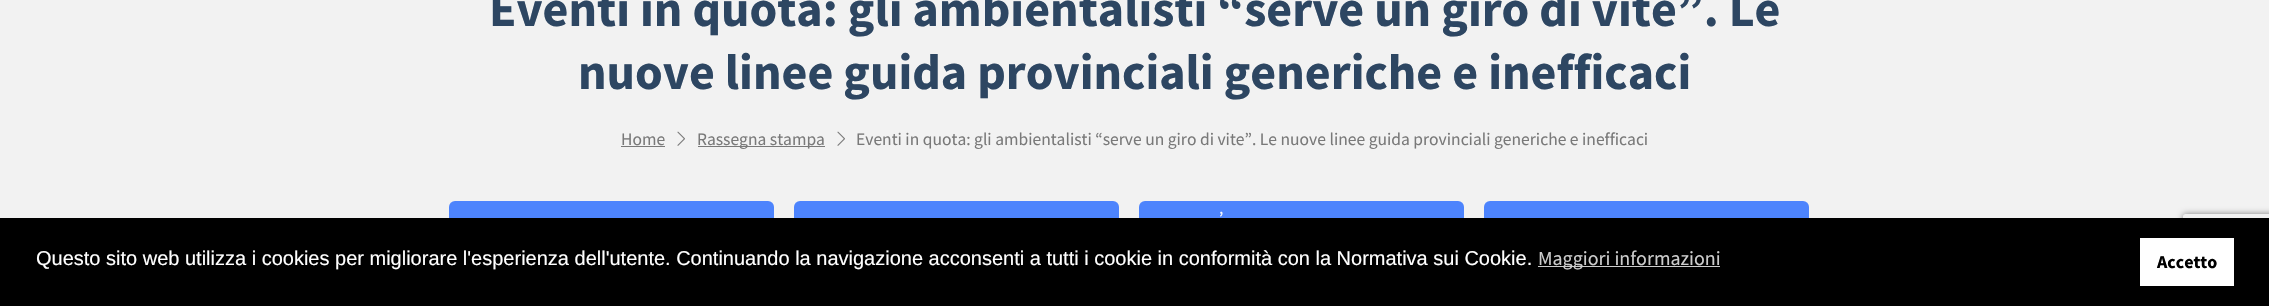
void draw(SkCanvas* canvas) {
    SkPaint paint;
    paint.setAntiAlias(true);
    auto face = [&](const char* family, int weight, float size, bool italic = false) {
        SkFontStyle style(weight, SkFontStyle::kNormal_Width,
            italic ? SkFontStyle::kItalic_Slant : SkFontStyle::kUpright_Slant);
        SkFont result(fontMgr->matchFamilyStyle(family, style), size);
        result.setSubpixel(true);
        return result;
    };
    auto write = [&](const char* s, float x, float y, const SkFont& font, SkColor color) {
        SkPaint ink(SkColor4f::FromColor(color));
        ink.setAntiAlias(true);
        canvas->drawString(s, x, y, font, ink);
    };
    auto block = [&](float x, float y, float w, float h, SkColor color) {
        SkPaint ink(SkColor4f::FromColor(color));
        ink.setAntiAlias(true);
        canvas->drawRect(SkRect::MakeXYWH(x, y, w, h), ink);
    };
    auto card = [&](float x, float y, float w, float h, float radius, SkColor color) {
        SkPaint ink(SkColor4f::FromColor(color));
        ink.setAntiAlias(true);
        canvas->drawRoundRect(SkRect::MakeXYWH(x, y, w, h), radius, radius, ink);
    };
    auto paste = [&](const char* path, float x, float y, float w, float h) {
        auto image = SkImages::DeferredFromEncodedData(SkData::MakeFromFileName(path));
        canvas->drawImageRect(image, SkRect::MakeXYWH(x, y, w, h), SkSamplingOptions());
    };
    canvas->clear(SkColorSetRGB(242, 242, 242));
    auto kFont1 = face("Source Sans Pro", 700, 50);
    write("Eventi in quota: gli ambientalisti “serve un giro di vite”. Le", 489, 26, kFont1, SkColorSetRGB(45, 70, 98));
    write("nuove linee guida provinciali generiche e inefficaci", 578, 89, kFont1, SkColorSetRGB(45, 70, 98));
    auto kFont2 = face("Source Sans Pro", 400, 17.5f);
    write("Home", 621, 145, kFont2, SkColorSetRGB(121, 121, 121));
    block(621, 146, 44, 1, SkColorSetRGB(121, 121, 121));
    paste("pic1.png", 677, 131, 8, 15);
    block(698, 146, 127, 1, SkColorSetRGB(121, 121, 121));
    write("Rassegna stampa", 697, 145, kFont2, SkColorSetRGB(121, 121, 121));
    paste("pic1.png", 837, 131, 8, 15);
    write("Eventi in quota: gli ambientalisti “serve un giro di vite”. Le nuove linee guida provinciali generiche e inefficaci", 856, 145, kFont2, SkColorSetRGB(121, 121, 121));
    card(449, 201, 325, 33, 6, SkColorSetRGB(77, 132, 253));
    card(794, 201, 325, 33, 6, SkColorSetRGB(77, 132, 253));
    card(1139, 201, 325, 33, 6, SkColorSetRGB(77, 132, 253));
    write("’", 1219, 224, kFont2, SK_ColorWHITE);
    card(1484, 201, 325, 33, 6, SkColorSetRGB(77, 132, 253));
    canvas->save();
    canvas->clipPath(SkPathBuilder(SkPathFillType::kEvenOdd).moveTo(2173, 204).lineTo(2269, 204).lineTo(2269, 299).lineTo(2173, 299).close().moveTo(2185.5f, 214).lineTo(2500.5f, 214).cubicTo(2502, 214, 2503, 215, 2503, 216.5f).lineTo(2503, 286.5f).cubicTo(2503, 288, 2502, 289, 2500.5f, 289).lineTo(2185.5f, 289).cubicTo(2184, 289, 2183, 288, 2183, 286.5f).lineTo(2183, 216.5f).cubicTo(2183, 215, 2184, 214, 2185.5f, 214).close().detach(), true);
    paint.setColor(SkColorSetRGB(128, 128, 128));
    paint.setMaskFilter(SkMaskFilter::MakeBlur(kNormal_SkBlurStyle, 3));
    canvas->drawRoundRect(SkRect::MakeXYWH(2183, 214, 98, 75), 2.5f, 2.5f, paint);
    paint.setMaskFilter(nullptr);
    canvas->restore();
    block(0, 218, 2269, 88, SK_ColorBLACK);
    auto kFont3 = face("Liberation Sans", 400, 20);
    write("Questo sito web utilizza i cookies per migliorare l'esperienza dell'utente. Continuando la navigazione acconsenti a tutti i cookie in conformità con la Normativa sui Cookie.", 36, 265, kFont3, SK_ColorWHITE);
    block(1538, 266, 182, 1, SkColorSetRGB(204, 204, 204));
    auto kFont4 = face("Source Sans Pro", 400, 20);
    write("Maggiori informazioni", 1538, 265, kFont4, SkColorSetRGB(204, 204, 204));
    block(2140, 238, 94, 48, SK_ColorWHITE);
    auto kFont5 = face("Source Sans Pro", 700, 18);
    write("Accetto", 2157, 268, kFont5, SK_ColorBLACK);
}
